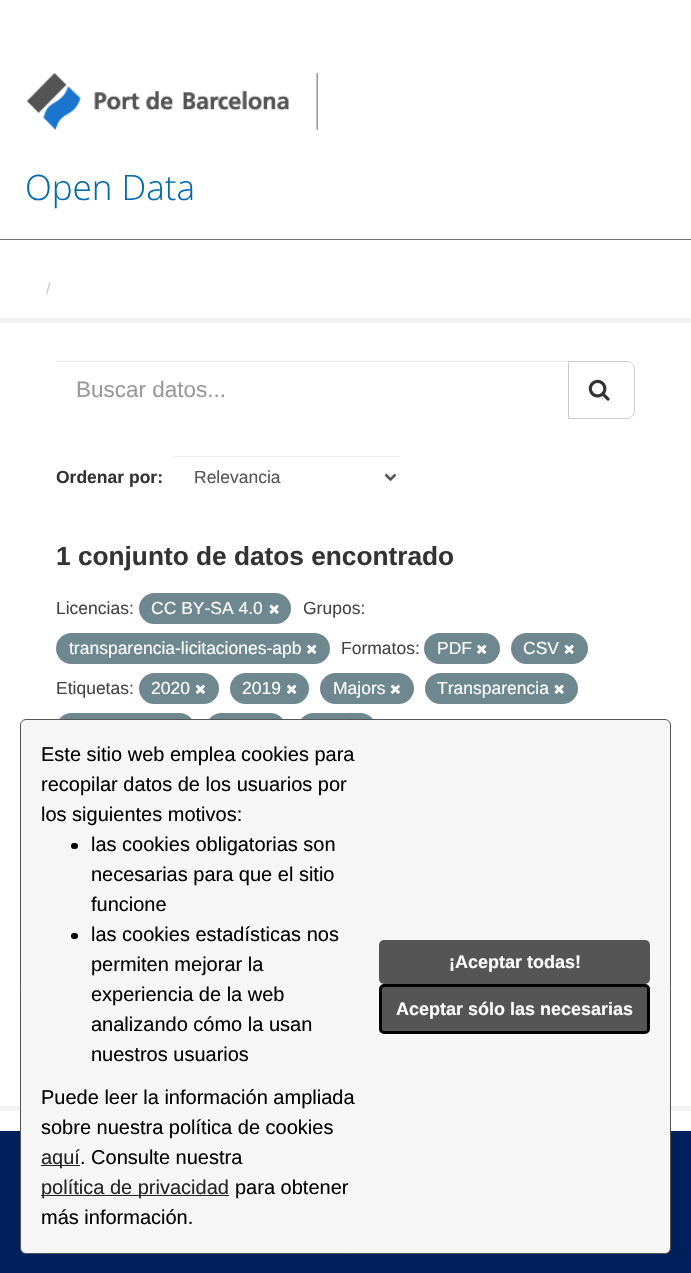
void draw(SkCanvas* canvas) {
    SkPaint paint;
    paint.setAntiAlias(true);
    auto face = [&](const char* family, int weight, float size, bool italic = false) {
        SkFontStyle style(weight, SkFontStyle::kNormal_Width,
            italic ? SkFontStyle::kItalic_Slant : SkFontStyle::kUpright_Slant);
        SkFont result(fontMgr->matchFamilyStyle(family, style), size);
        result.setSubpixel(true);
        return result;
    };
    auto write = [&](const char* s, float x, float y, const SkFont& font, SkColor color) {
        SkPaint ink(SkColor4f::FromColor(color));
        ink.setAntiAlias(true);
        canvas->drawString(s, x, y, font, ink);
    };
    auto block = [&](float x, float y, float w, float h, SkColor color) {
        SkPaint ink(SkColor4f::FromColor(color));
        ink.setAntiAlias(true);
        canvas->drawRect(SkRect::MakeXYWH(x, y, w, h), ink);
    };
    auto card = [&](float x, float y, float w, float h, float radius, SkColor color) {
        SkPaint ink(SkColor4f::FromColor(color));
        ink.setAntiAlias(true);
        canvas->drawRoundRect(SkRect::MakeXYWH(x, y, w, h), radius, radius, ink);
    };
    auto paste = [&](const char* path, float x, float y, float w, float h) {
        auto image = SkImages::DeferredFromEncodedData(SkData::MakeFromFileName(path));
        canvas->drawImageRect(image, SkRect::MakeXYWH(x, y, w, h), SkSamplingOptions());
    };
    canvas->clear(SK_ColorWHITE);
    paste("pic1.png", 26, 73, 292, 58);
    auto kFont1 = face("Open Sans", 300, 35);
    write("Open Data", 25, 200, kFont1, SkColorSetRGB(0, 105, 175));
    block(0, 239, 691, 1, SkColorSetRGB(106, 117, 113));
    auto kFont2 = face("Liberation Sans", 400, 16);
    write("/", 46, 294, kFont2, SkColorSetRGB(204, 204, 204));
    paint.setStyle(SkPaint::kStroke_Style);
    paint.setStrokeWidth(5);
    paint.setColor(SkColorSetRGB(242, 242, 242));
    canvas->drawRect(SkRect::MakeXYWH(-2.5f, 320.5f, 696, 788), paint);
    block(56, 361, 513, 1, SkColorSetRGB(236, 236, 236));
    auto kFont3 = face("Liberation Sans", 400, 22.5f);
    write("Buscar datos...", 76, 397, kFont3, SkColorSetRGB(153, 153, 153));
    paint.setStyle(SkPaint::kFill_Style);
    paint.setColor(SK_ColorWHITE);
    canvas->drawPath(SkPathBuilder().moveTo(568.5f, 361.5f).lineTo(627, 361.5f).cubicTo(631, 361.5f, 634.5f, 365, 634.5f, 369).lineTo(634.5f, 411).cubicTo(634.5f, 415, 631, 418.5f, 627, 418.5f).lineTo(568.5f, 418.5f).close().detach(), paint);
    paint.setStyle(SkPaint::kStroke_Style);
    paint.setStrokeWidth(1);
    paint.setColor(SkColorSetRGB(204, 204, 204));
    canvas->drawPath(SkPathBuilder().moveTo(568.5f, 361.5f).lineTo(627, 361.5f).cubicTo(631, 361.5f, 634.5f, 365, 634.5f, 369).lineTo(634.5f, 411).cubicTo(634.5f, 415, 631, 418.5f, 627, 418.5f).lineTo(568.5f, 418.5f).close().detach(), paint);
    paste("pic2.png", 588, 379, 22, 22);
    auto kFont4 = face("Liberation Sans", 700, 17.5f);
    write("Ordenar por:", 56, 483, kFont4, SkColorSetRGB(51, 51, 51));
    block(174, 456, 226, 1, SkColorSetRGB(236, 236, 236));
    paint.setStrokeWidth(2.5f);
    paint.setColor(SkColorSetRGB(85, 85, 85));
    canvas->drawPath(SkPathBuilder().moveTo(385.5f, 474.5f).lineTo(390.5f, 479.5f).lineTo(395.5f, 474.5f).detach(), paint);
    auto kFont5 = face("Liberation Sans", 400, 17.5f);
    write("Relevancia", 194, 483, kFont5, SkColorSetRGB(85, 85, 85));
    auto kFont6 = face("Liberation Sans", 700, 26.25f);
    write("1 conjunto de datos encontrado", 56, 565, kFont6, SkColorSetRGB(51, 51, 51));
    write("Licencias:", 56, 614, kFont5, SkColorSetRGB(68, 68, 68));
    card(139, 593, 152, 31, 15.5f, SkColorSetRGB(111, 136, 144));
    write("CC BY-SA 4.0", 151, 614, kFont5, SK_ColorWHITE);
    paste("pic3.png", 269, 604, 10, 10);
    write("Grupos:", 303, 614, kFont5, SkColorSetRGB(68, 68, 68));
    card(56, 633, 274, 31, 15.5f, SkColorSetRGB(111, 136, 144));
    write("transparencia-licitaciones-apb", 69, 654, kFont5, SK_ColorWHITE);
    paste("pic4.png", 307, 644, 10, 10);
    write("Formatos:", 341, 654, kFont5, SkColorSetRGB(68, 68, 68));
    card(424, 633, 76, 31, 15.5f, SkColorSetRGB(111, 136, 144));
    write("PDF", 437, 654, kFont5, SK_ColorWHITE);
    paste("pic4.png", 477, 644, 10, 10);
    card(511, 633, 77, 31, 15.5f, SkColorSetRGB(111, 136, 144));
    write("CSV", 523, 654, kFont5, SK_ColorWHITE);
    paste("pic3.png", 564, 644, 10, 10);
    write("Etiquetas:", 56, 694, kFont5, SkColorSetRGB(68, 68, 68));
    card(139, 673, 80, 31, 15.5f, SkColorSetRGB(111, 136, 144));
    write("2020", 151, 694, kFont5, SK_ColorWHITE);
    paste("pic5.png", 195, 684, 10, 10);
    card(230, 673, 79, 31, 15.5f, SkColorSetRGB(111, 136, 144));
    write("2019", 242, 694, kFont5, SK_ColorWHITE);
    paste("pic4.png", 287, 684, 10, 10);
    card(320, 673, 94, 31, 15.5f, SkColorSetRGB(111, 136, 144));
    write("Majors", 333, 694, kFont5, SK_ColorWHITE);
    paste("pic5.png", 390, 684, 10, 10);
    card(425, 673, 153, 31, 15.5f, SkColorSetRGB(111, 136, 144));
    write("Transparencia", 437, 694, kFont5, SK_ColorWHITE);
    paste("pic3.png", 554, 684, 10, 10);
    card(56, 713, 139, 31, 15.5f, SkColorSetRGB(111, 136, 144));
    card(206, 713, 80, 31, 15.5f, SkColorSetRGB(111, 136, 144));
    card(298, 713, 78, 31, 15.5f, SkColorSetRGB(111, 136, 144));
    block(0, 1131, 691, 142, SkColorSetRGB(0, 32, 91));
    paint.setStyle(SkPaint::kFill_Style);
    paint.setColor(SkColorSetRGB(246, 246, 246));
    canvas->drawRoundRect(SkRect::MakeXYWH(20.5f, 719.5f, 650, 534), 5.5f, 5.5f, paint);
    paint.setStyle(SkPaint::kStroke_Style);
    paint.setStrokeWidth(1);
    paint.setColor(SkColorSetRGB(85, 85, 85));
    canvas->drawRoundRect(SkRect::MakeXYWH(20.5f, 719.5f, 650, 534), 5.5f, 5.5f, paint);
    auto kFont7 = face("Liberation Sans", 400, 20);
    write("Este sitio web emplea cookies para", 41, 761, kFont7, SK_ColorBLACK);
    write("recopilar datos de los usuarios por", 41, 791, kFont7, SK_ColorBLACK);
    write("los siguientes motivos:", 41, 821, kFont7, SK_ColorBLACK);
    card(71, 843, 7, 6, 3, SK_ColorBLACK);
    write("las cookies obligatorias son", 91, 851, kFont7, SK_ColorBLACK);
    write("necesarias para que el sitio", 91, 881, kFont7, SK_ColorBLACK);
    write("funcione", 91, 911, kFont7, SK_ColorBLACK);
    card(71, 933, 7, 6, 3, SK_ColorBLACK);
    write("las cookies estadísticas nos", 91, 941, kFont7, SK_ColorBLACK);
    write("permiten mejorar la", 91, 971, kFont7, SK_ColorBLACK);
    write("experiencia de la web", 91, 1001, kFont7, SK_ColorBLACK);
    write("analizando cómo la usan", 91, 1031, kFont7, SK_ColorBLACK);
    write("nuestros usuarios", 91, 1061, kFont7, SK_ColorBLACK);
    write("Puede leer la información ampliada", 41, 1104, kFont7, SK_ColorBLACK);
    write("sobre nuestra política de cookies", 41, 1134, kFont7, SK_ColorBLACK);
    block(41, 1165, 39, 1, SkColorSetRGB(37, 37, 37));
    write("aquí", 41, 1164, kFont7, SkColorSetRGB(37, 37, 37));
    write(". Consulte nuestra", 80, 1164, kFont7, SK_ColorBLACK);
    block(41, 1195, 188, 1, SkColorSetRGB(37, 37, 37));
    write("política de privacidad", 41, 1194, kFont7, SkColorSetRGB(37, 37, 37));
    write("para obtener", 235, 1194, kFont7, SK_ColorBLACK);
    write("más información.", 41, 1224, kFont7, SK_ColorBLACK);
    card(379, 940, 271, 44, 5, SkColorSetRGB(85, 85, 85));
    auto kFont8 = face("Liberation Sans", 700, 18);
    write("¡Aceptar todas!", 449, 968, kFont8, SK_ColorWHITE);
    paint.setStyle(SkPaint::kFill_Style);
    canvas->drawRoundRect(SkRect::MakeXYWH(380.5f, 985.5f, 268, 47), 3.5f, 3.5f, paint);
    paint.setStyle(SkPaint::kStroke_Style);
    paint.setStrokeWidth(3);
    paint.setColor(SK_ColorBLACK);
    canvas->drawRoundRect(SkRect::MakeXYWH(380.5f, 985.5f, 268, 47), 3.5f, 3.5f, paint);
    write("Aceptar sólo las necesarias", 396, 1015, kFont8, SK_ColorWHITE);
}
